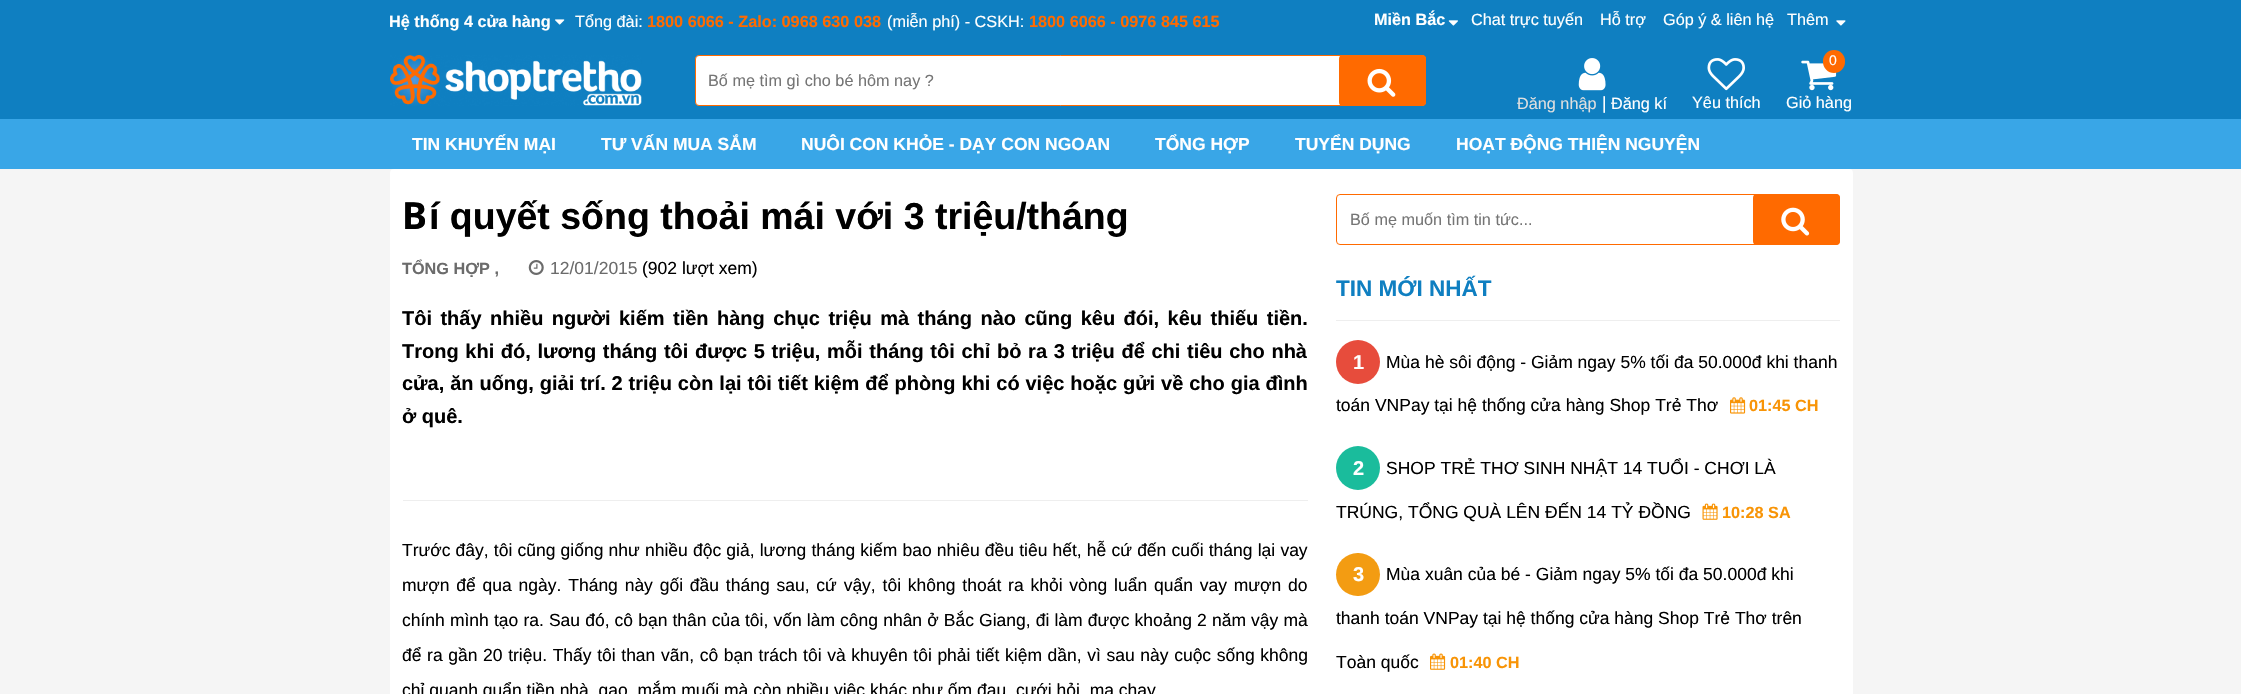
void draw(SkCanvas* canvas) {
    SkPaint paint;
    paint.setAntiAlias(true);
    auto face = [&](const char* family, int weight, float size, bool italic = false) {
        SkFontStyle style(weight, SkFontStyle::kNormal_Width,
            italic ? SkFontStyle::kItalic_Slant : SkFontStyle::kUpright_Slant);
        SkFont result(fontMgr->matchFamilyStyle(family, style), size);
        result.setSubpixel(true);
        return result;
    };
    auto write = [&](const char* s, float x, float y, const SkFont& font, SkColor color) {
        SkPaint ink(SkColor4f::FromColor(color));
        ink.setAntiAlias(true);
        canvas->drawString(s, x, y, font, ink);
    };
    auto writeSpaced = [&](const char* s, float x, float y, const SkFont& font, const SkPaint& ink, float letter, float word) {
        std::vector<SkGlyphID> glyphs(font.countText(s, strlen(s), SkTextEncoding::kUTF8));
        std::vector<float> xs(glyphs.size());
        font.textToGlyphs(s, strlen(s), SkTextEncoding::kUTF8, glyphs);
        font.getXPos(glyphs, xs, x);
        float extra = 0;
        for (size_t i = 0; i < glyphs.size(); i++) {
            xs[i] += extra;
            extra += letter + word * (glyphs[i] == font.unicharToGlyph(' '));
        }
        canvas->drawTextBlob(SkTextBlob::MakeFromPosHGlyphs(glyphs, xs, y, font), 0, 0, ink);
    };
    auto block = [&](float x, float y, float w, float h, SkColor color) {
        SkPaint ink(SkColor4f::FromColor(color));
        ink.setAntiAlias(true);
        canvas->drawRect(SkRect::MakeXYWH(x, y, w, h), ink);
    };
    auto card = [&](float x, float y, float w, float h, float radius, SkColor color) {
        SkPaint ink(SkColor4f::FromColor(color));
        ink.setAntiAlias(true);
        canvas->drawRoundRect(SkRect::MakeXYWH(x, y, w, h), radius, radius, ink);
    };
    auto paste = [&](const char* path, float x, float y, float w, float h) {
        auto image = SkImages::DeferredFromEncodedData(SkData::MakeFromFileName(path));
        canvas->drawImageRect(image, SkRect::MakeXYWH(x, y, w, h), SkSamplingOptions());
    };
    canvas->clear(SkColorSetRGB(15, 127, 193));
    auto kFont1 = face("Liberation Sans", 700, 16.25f);
    write("Hệ thống 4 cửa hàng", 389, 27, kFont1, SK_ColorWHITE);
    paste("pic1.png", 555, 19, 10, 6);
    auto kFont2 = face("Liberation Sans", 400, 16.25f);
    write("Tổng đài:", 575, 27, kFont2, SK_ColorWHITE);
    write("1800 6066 - Zalo: 0968 630 038", 647, 27, kFont1, SkColorSetRGB(255, 106, 0));
    write("(miễn phí) - CSKH:", 887, 27, kFont2, SK_ColorWHITE);
    write("1800 6066 - 0976 845 615", 1029, 27, kFont1, SkColorSetRGB(255, 106, 0));
    write("Miền Bắc", 1374, 25, kFont1, SK_ColorWHITE);
    paste("pic2.png", 1448, 20, 10, 6);
    write("Chat trực tuyến", 1471, 25, kFont2, SK_ColorWHITE);
    write("Hỗ trợ", 1600, 25, kFont2, SK_ColorWHITE);
    write("Góp ý & liên hệ", 1663, 25, kFont2, SK_ColorWHITE);
    write("Thêm", 1787, 25, kFont2, SK_ColorWHITE);
    paste("pic3.png", 1836, 20, 10, 6);
    paste("pic4.png", 390, 55, 252, 51);
    paint.setColor(SK_ColorWHITE);
    canvas->drawRoundRect(SkRect::MakeXYWH(695.5f, 55.5f, 730, 50), 3.5f, 3.5f, paint);
    paint.setStyle(SkPaint::kStroke_Style);
    paint.setStrokeWidth(1);
    paint.setColor(SkColorSetRGB(255, 106, 0));
    canvas->drawRoundRect(SkRect::MakeXYWH(695.5f, 55.5f, 730, 50), 3.5f, 3.5f, paint);
    write("Bố mẹ tìm gì cho bé hôm nay ?", 708, 86, kFont2, SkColorSetRGB(117, 117, 117));
    card(1339, 55, 87, 51, 4, SkColorSetRGB(255, 106, 0));
    paste("pic5.png", 1367, 68, 29, 29);
    paste("pic6.png", 1578, 58, 28, 33);
    write("Đăng nhập", 1517, 109, kFont2, SkColorSetRGB(223, 223, 223));
    auto kFont3 = face("Liberation Sans", 400, 17.5f);
    write("|", 1602, 109, kFont3, SK_ColorWHITE);
    write("Đăng kí", 1611, 109, kFont2, SK_ColorWHITE);
    paste("pic7.png", 1707, 58, 38, 33);
    write("Yêu thích", 1692, 108, kFont2, SK_ColorWHITE);
    paste("pic8.png", 1801, 60, 36, 31);
    card(1823, 50, 22, 23, 11, SkColorSetRGB(255, 106, 0));
    auto kFont4 = face("Liberation Sans", 400, 14);
    write("0", 1829, 65, kFont4, SK_ColorWHITE);
    write("Giỏ hàng", 1786, 108, kFont2, SK_ColorWHITE);
    block(0, 119, 2241, 50, SkColorSetRGB(57, 166, 231));
    auto kFont5 = face("Liberation Sans", 700, 17.5f);
    write("TIN KHUYẾN MẠI", 412, 150, kFont5, SK_ColorWHITE);
    write("TƯ VẤN MUA SẮM", 601, 150, kFont5, SK_ColorWHITE);
    write("NUÔI CON KHỎE - DẠY CON NGOAN", 801, 150, kFont5, SK_ColorWHITE);
    write("TỔNG HỢP", 1155, 150, kFont5, SK_ColorWHITE);
    write("TUYỂN DỤNG", 1295, 150, kFont5, SK_ColorWHITE);
    write("HOẠT ĐỘNG THIỆN NGUYỆN", 1456, 150, kFont5, SK_ColorWHITE);
    block(0, 169, 2241, 525, SkColorSetRGB(245, 245, 245));
    card(390, 169, 1463, 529, 4, SK_ColorWHITE);
    auto kFont6 = face("Noto Sans", 700, 37.5f);
    write("B", 402, 229, kFont6, SK_ColorBLACK);
    auto kFont7 = face("Liberation Sans", 700, 37.5f);
    write("í quyết sống thoải mái với 3 triệu/tháng", 429, 229, kFont7, SK_ColorBLACK);
    write("TỔNG HỢP ,", 402, 274, kFont1, SkColorSetRGB(107, 107, 107));
    paste("pic9.png", 528, 260, 16, 15);
    write("12/01/2015", 550, 274, kFont3, SkColorSetRGB(107, 107, 107));
    write("(902 lượt xem)", 642, 274, kFont3, SK_ColorBLACK);
    auto kFont8 = face("Liberation Sans", 700, 20);
    paint.setStyle(SkPaint::kFill_Style);
    paint.setColor(SK_ColorBLACK);
    writeSpaced("Tôi thấy nhiều người kiếm tiền hàng chục triệu mà tháng nào cũng kêu đói, kêu thiếu tiền.", 402, 325, kFont8, paint, 0, 2.9f);
    writeSpaced("Trong khi đó, lương tháng tôi được 5 triệu, mỗi tháng tôi chỉ bỏ ra 3 triệu để chi tiêu cho nhà", 402, 358, kFont8, paint, 0, 1.1f);
    writeSpaced("cửa, ăn uống, giải trí. 2 triệu còn lại tôi tiết kiệm để phòng khi có việc hoặc gửi về cho gia đình", 402, 390, kFont8, paint, 0, 0.35f);
    write("ở quê.", 402, 423, kFont8, SK_ColorBLACK);
    block(403, 500, 905, 1, SkColorSetRGB(238, 238, 238));
    writeSpaced("Trước đây, tôi cũng giống như nhiều độc giả, lương tháng kiếm bao nhiêu đều tiêu hết, hễ cứ đến cuối tháng lại vay", 402, 556, kFont3, paint, 0, 0.3f);
    writeSpaced("mượn để qua ngày. Tháng này gối đầu tháng sau, cứ vậy, tôi không thoát ra khỏi vòng luẩn quẩn vay mượn do", 402, 591, kFont3, paint, 0, 1.95f);
    writeSpaced("chính mình tạo ra. Sau đó, cô bạn thân của tôi, vốn làm công nhân ở Bắc Giang, đi làm được khoảng 2 năm vậy mà", 402, 626, kFont3, paint, 0, 0.25f);
    writeSpaced("để ra gần 20 triệu. Thấy tôi than vãn, cô bạn trách tôi và khuyên tôi phải tiết kiệm dần, vì sau này cuộc sống không", 402, 661, kFont3, paint, 0, 0.75f);
    write("chỉ quanh quẩn tiền nhà, gạo, mắm muối mà còn nhiều việc khác như ốm đau, cưới hỏi, ma chay", 402, 696, kFont3, SK_ColorBLACK);
    paint.setStyle(SkPaint::kStroke_Style);
    paint.setColor(SkColorSetRGB(255, 106, 0));
    canvas->drawRoundRect(SkRect::MakeXYWH(1336.5f, 194.5f, 503, 50), 3.5f, 3.5f, paint);
    write("Bố mẹ muốn tìm tin tức...", 1350, 225, kFont2, SkColorSetRGB(117, 117, 117));
    card(1753, 194, 87, 51, 4, SkColorSetRGB(255, 106, 0));
    paste("pic10.png", 1781, 207, 29, 29);
    block(1336, 320, 504, 1, SkColorSetRGB(238, 238, 238));
    auto kFont9 = face("Liberation Sans", 700, 22.5f);
    write("TIN MỚI NHẤT", 1336, 296, kFont9, SkColorSetRGB(15, 127, 193));
    paint.setStyle(SkPaint::kFill_Style);
    paint.setColor(SkColorSetRGB(231, 76, 60));
    canvas->drawCircle(1358, 362, 22, paint);
    write("1", 1353, 369, kFont8, SK_ColorWHITE);
    write("Mùa hè sôi động - Giảm ngay 5% tối đa 50.000đ khi thanh", 1386, 368, kFont3, SK_ColorBLACK);
    write("toán VNPay tại hệ thống cửa hàng Shop Trẻ Thơ", 1336, 411, kFont3, SK_ColorBLACK);
    paste("pic11.png", 1730, 397, 16, 17);
    write("01:45 CH", 1749, 411, kFont1, SkColorSetRGB(248, 148, 6));
    paint.setColor(SkColorSetRGB(26, 188, 156));
    canvas->drawCircle(1358, 468, 22, paint);
    write("2", 1353, 475, kFont8, SK_ColorWHITE);
    write("SHOP TRẺ THƠ SINH NHẬT 14 TUỔI - CHƠI LÀ", 1386, 474, kFont3, SK_ColorBLACK);
    write("TRÚNG, TỔNG QUÀ LÊN ĐẾN 14 TỶ ĐỒNG", 1336, 518, kFont3, SK_ColorBLACK);
    paste("pic12.png", 1702, 503, 16, 17);
    write("10:28 SA", 1722, 518, kFont1, SkColorSetRGB(248, 148, 6));
    card(1336, 553, 44, 43, 21.5f, SkColorSetRGB(243, 156, 18));
    write("3", 1353, 581, kFont8, SK_ColorWHITE);
    write("Mùa xuân của bé - Giảm ngay 5% tối đa 50.000đ khi", 1386, 580, kFont3, SK_ColorBLACK);
    write("thanh toán VNPay tại hệ thống cửa hàng Shop Trẻ Thơ trên", 1336, 624, kFont3, SK_ColorBLACK);
    write("Toàn quốc", 1336, 668, kFont3, SK_ColorBLACK);
    paste("pic13.png", 1430, 653, 16, 17);
    write("01:40 CH", 1450, 668, kFont1, SkColorSetRGB(248, 148, 6));
}
